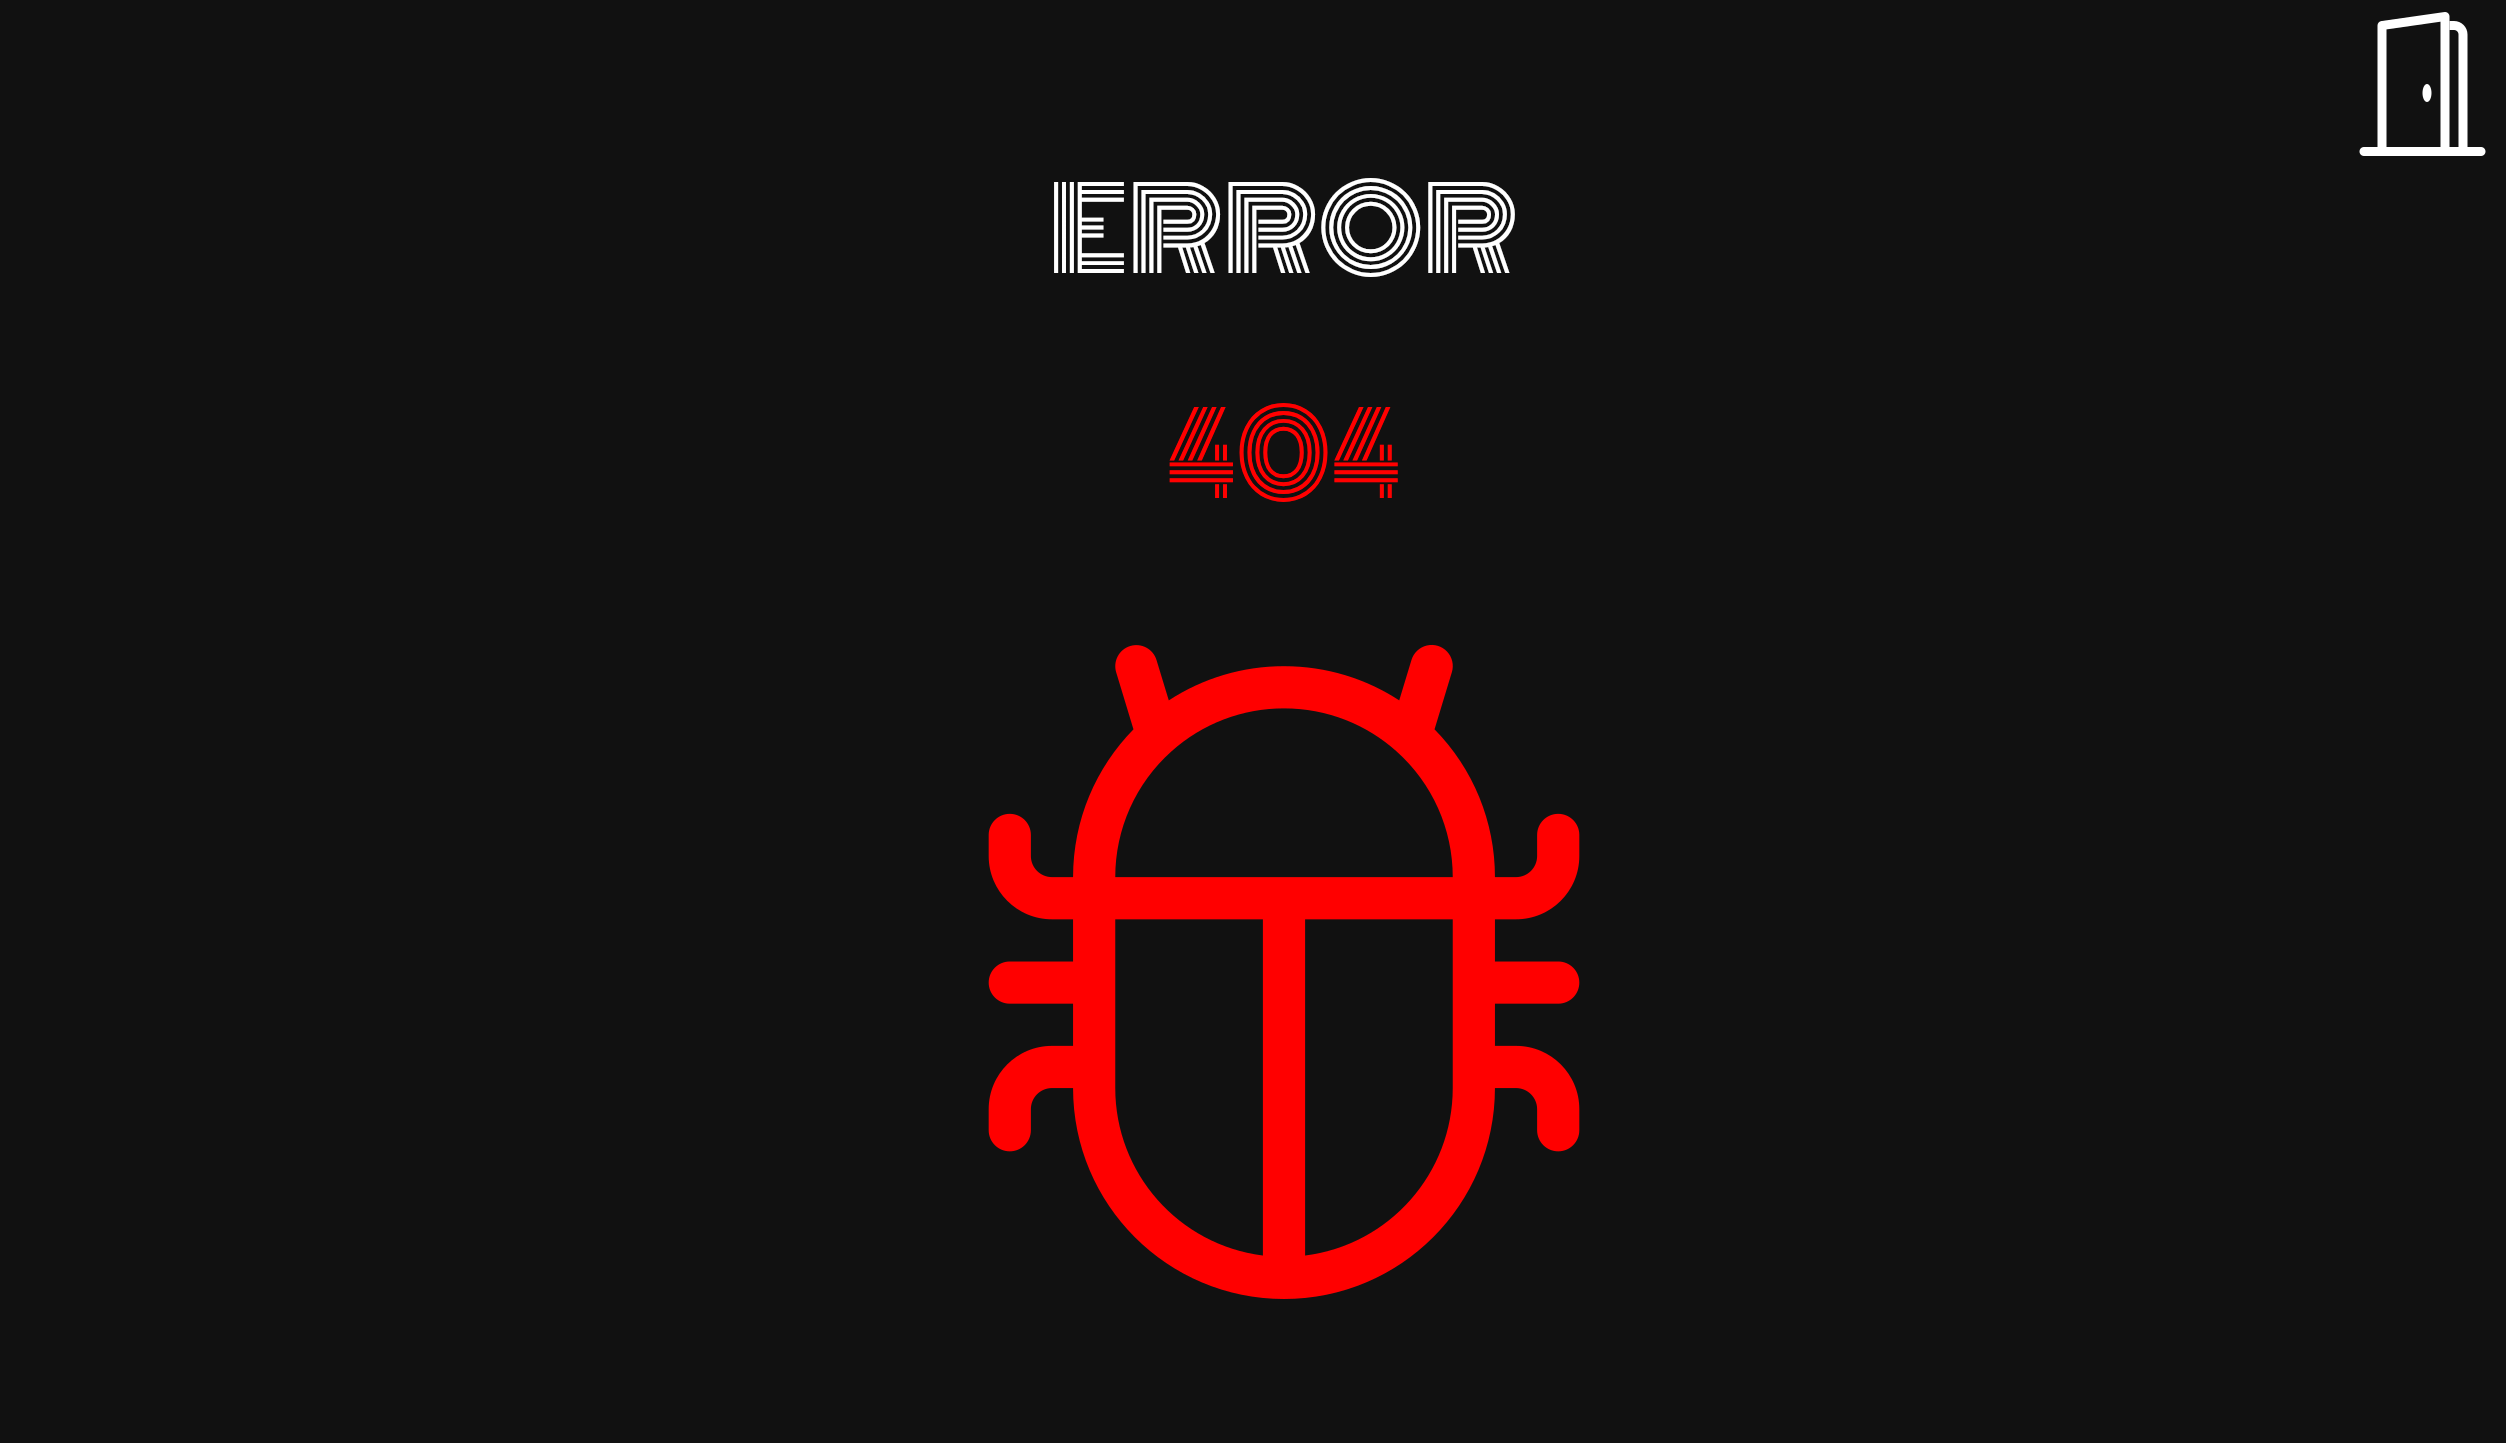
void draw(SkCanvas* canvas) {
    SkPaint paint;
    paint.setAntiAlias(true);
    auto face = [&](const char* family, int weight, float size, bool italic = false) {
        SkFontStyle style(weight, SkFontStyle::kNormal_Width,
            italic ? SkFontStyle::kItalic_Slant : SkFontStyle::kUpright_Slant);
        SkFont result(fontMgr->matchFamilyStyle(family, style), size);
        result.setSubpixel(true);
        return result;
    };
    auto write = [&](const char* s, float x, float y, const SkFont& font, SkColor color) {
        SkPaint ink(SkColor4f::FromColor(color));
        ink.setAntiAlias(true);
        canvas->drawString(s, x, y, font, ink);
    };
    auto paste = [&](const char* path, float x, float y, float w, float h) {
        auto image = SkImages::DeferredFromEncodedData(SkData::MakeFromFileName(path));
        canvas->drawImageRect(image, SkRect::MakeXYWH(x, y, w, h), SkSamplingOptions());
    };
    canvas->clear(SkColorSetRGB(17, 17, 17));
    paste("pic1.png", 2359, 12, 127, 144);
    auto kFont1 = face("Monoton", 400, 112.5f);
    write("ERROR", 1049, 273, kFont1, SK_ColorWHITE);
    write("404", 1166, 498, kFont1, SkColorSetRGB(255, 0, 0));
    paste("pic2.png", 988, 644, 592, 655);
}
